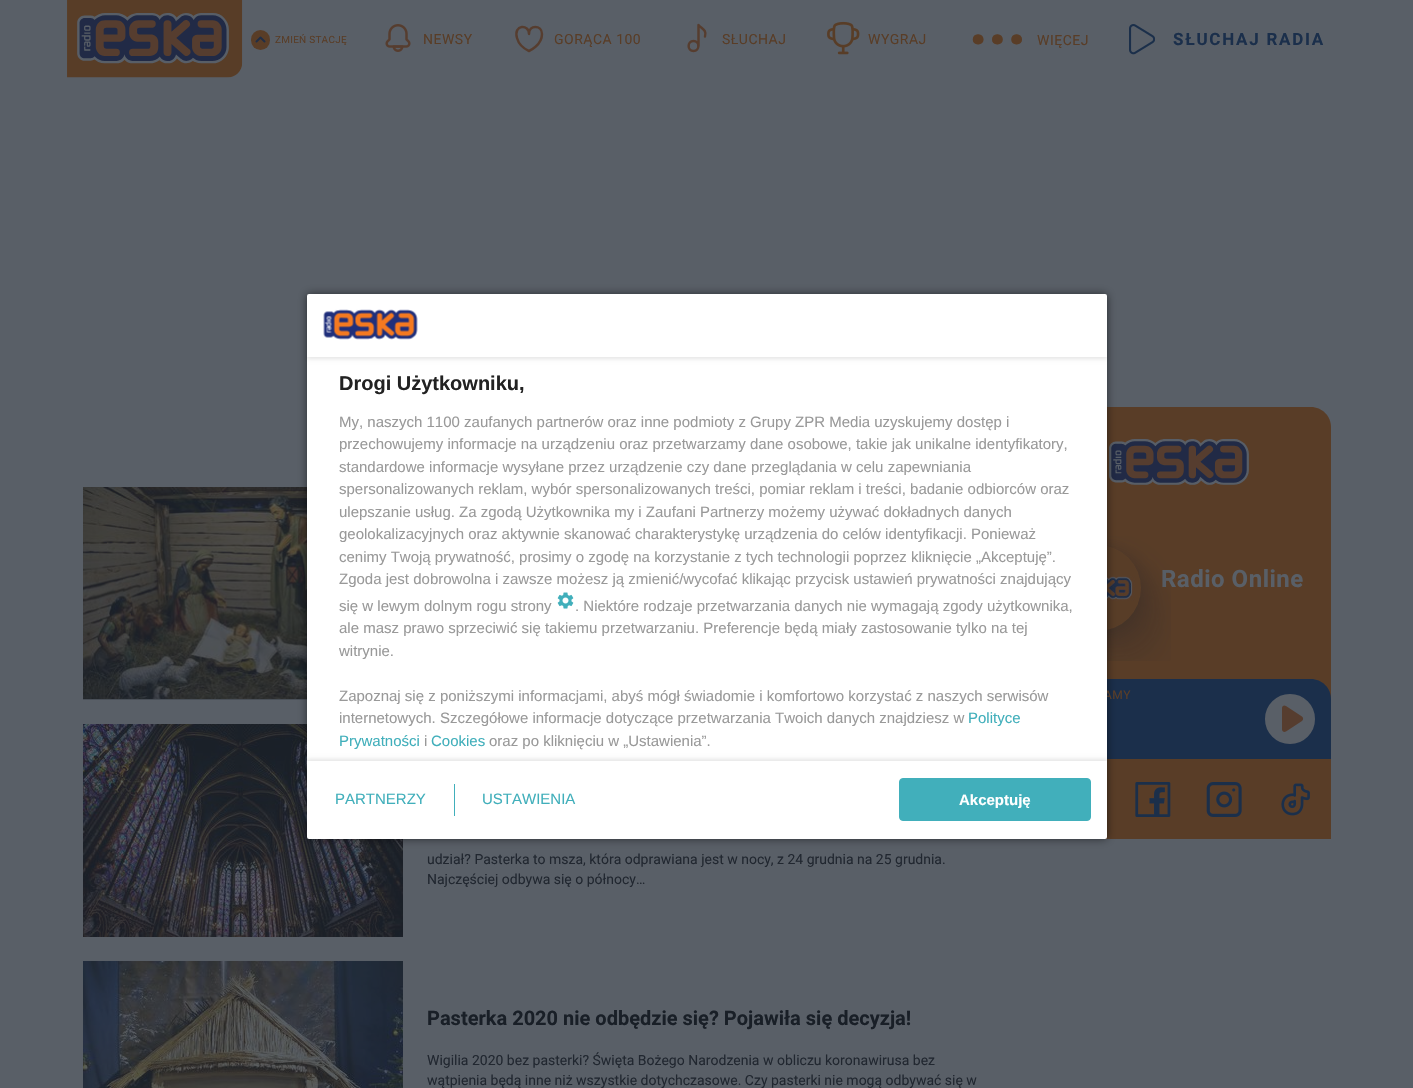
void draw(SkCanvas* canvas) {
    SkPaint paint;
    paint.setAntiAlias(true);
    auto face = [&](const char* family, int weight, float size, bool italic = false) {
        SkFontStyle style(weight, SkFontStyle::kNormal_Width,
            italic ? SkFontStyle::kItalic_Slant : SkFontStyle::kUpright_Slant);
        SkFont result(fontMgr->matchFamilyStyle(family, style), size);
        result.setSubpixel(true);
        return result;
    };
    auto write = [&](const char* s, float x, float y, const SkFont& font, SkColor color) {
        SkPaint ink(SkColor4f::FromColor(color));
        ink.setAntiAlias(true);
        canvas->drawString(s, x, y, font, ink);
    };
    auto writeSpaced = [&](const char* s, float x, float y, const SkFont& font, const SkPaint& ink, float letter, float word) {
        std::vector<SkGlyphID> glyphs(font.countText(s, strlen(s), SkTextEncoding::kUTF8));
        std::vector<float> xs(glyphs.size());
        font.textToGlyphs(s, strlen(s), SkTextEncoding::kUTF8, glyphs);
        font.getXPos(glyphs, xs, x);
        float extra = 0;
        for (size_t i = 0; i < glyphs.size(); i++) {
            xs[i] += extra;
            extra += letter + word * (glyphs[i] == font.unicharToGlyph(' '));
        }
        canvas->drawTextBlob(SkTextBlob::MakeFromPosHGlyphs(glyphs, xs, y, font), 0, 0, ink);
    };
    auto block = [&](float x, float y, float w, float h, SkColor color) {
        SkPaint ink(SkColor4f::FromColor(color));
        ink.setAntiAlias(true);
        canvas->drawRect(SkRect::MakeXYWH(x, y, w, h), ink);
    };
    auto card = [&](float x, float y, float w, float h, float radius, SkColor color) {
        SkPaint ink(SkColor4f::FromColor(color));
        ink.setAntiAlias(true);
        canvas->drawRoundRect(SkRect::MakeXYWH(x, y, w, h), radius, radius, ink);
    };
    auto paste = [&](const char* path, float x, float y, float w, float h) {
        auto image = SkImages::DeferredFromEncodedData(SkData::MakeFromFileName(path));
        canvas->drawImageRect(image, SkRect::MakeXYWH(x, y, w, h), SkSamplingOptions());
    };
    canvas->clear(SkColorSetRGB(89, 95, 103));
    paste("pic1.png", 67, 0, 176, 78);
    card(251, 30, 19, 20, 9.5f, SkColorSetRGB(89, 61, 39));
    paint.setStyle(SkPaint::kStroke_Style);
    paint.setStrokeWidth(2.1f);
    paint.setStrokeCap(SkPaint::kRound_Cap);
    paint.setStrokeJoin(SkPaint::kRound_Join);
    paint.setColor(SkColorSetRGB(33, 46, 70));
    canvas->drawPath(SkPathBuilder().moveTo(264.5f, 41.5f).lineTo(260.5f, 37.5f).lineTo(256.5f, 41.5f).detach(), paint);
    auto kFont1 = face("Roboto", 400, 10);
    paint.setStyle(SkPaint::kFill_Style);
    paint.setColor(SkColorSetRGB(89, 61, 39));
    writeSpaced("ZMIEŃ STACJĘ", 275, 43, kFont1, paint, 0.25f, 0);
    paste("pic2.png", 385, 24, 26, 28);
    auto kFont2 = face("Roboto", 400, 14);
    writeSpaced("NEWSY", 423, 44, kFont2, paint, 0.5f, 0);
    paint.setStyle(SkPaint::kStroke_Style);
    paint.setStrokeWidth(2.5f);
    paint.setColor(SkColorSetRGB(86, 61, 47));
    canvas->drawPath(SkPathBuilder().moveTo(542, 34).cubicTo(542, 45.5f, 529, 51, 529, 51).cubicTo(523.5f, 48.5f, 518.5f, 43.5f, 517, 38).cubicTo(513, 24, 529.5f, 24, 529, 34).cubicTo(528.5f, 24.5f, 542, 24.5f, 542, 34).close().detach(), paint);
    paint.setStyle(SkPaint::kFill_Style);
    paint.setColor(SkColorSetRGB(89, 61, 39));
    writeSpaced("GORĄCA 100", 554, 44, kFont2, paint, 0.5f, 0);
    paint.setStyle(SkPaint::kStroke_Style);
    paint.setColor(SkColorSetRGB(86, 61, 47));
    canvas->drawPath(SkPathBuilder().moveTo(698.5f, 46).lineTo(698.5f, 25).cubicTo(702, 29, 707, 30, 705, 36.5f).moveTo(693.5f, 51).cubicTo(700, 51, 700, 41, 693.5f, 41).cubicTo(687, 41, 687, 51, 693.5f, 51).close().detach(), paint);
    paint.setStyle(SkPaint::kFill_Style);
    paint.setColor(SkColorSetRGB(89, 61, 39));
    writeSpaced("SŁUCHAJ", 722, 44, kFont2, paint, 0.5f, 0);
    paste("pic3.png", 827, 21, 33, 34);
    writeSpaced("WYGRAJ", 868, 44, kFont2, paint, 0.5f, 0);
    auto kFont3 = face("Roboto", 400, 96);
    writeSpaced("...", 966, 44, kFont3, paint, -6, 0);
    writeSpaced("WIĘCEJ", 1037, 45, kFont2, paint, 0.5f, 0);
    paste("pic4.png", 1129, 24, 26, 31);
    auto kFont4 = face("Roboto", 700, 17);
    paint.setColor(SkColorSetRGB(27, 47, 75));
    writeSpaced("SŁUCHAJ RADIA", 1173, 45, kFont4, paint, 1.75f, 0);
    paint.setColor(SkColorSetRGB(89, 61, 39));
    canvas->drawPath(SkPathBuilder().moveTo(1051, 407).lineTo(1311, 407).cubicTo(1322, 407, 1331, 416, 1331, 427).lineTo(1331, 839).lineTo(1031, 839).lineTo(1031, 427).cubicTo(1031, 416, 1040, 407, 1051, 407).close().detach(), paint);
    paste("pic7.png", 1109, 439, 140, 46);
    auto kFont5 = face("Roboto", 700, 24);
    paint.setColor(SkColorSetRGB(89, 95, 103));
    writeSpaced("Radio Online", 1161, 587, kFont5, paint, 0.5f, 0);
    paste("pic8.png", 1107, 536, 64, 125);
    paint.setColor(SkColorSetRGB(27, 47, 75));
    canvas->drawPath(SkPathBuilder().moveTo(1051, 679).lineTo(1311, 679).cubicTo(1322, 679, 1331, 688, 1331, 699).lineTo(1331, 759).lineTo(1031, 759).lineTo(1031, 699).cubicTo(1031, 688, 1040, 679, 1051, 679).close().detach(), paint);
    block(83, 699, 224, 1, SkColorSetRGB(73, 79, 87));
    paste("pic12.png", 83, 487, 224, 212);
    paste("pic13.png", 83, 724, 320, 213);
    paint.setColor(SkColorSetARGB(128, 0, 0, 0));
    paint.setMaskFilter(SkMaskFilter::MakeBlur(kNormal_SkBlurStyle, 5));
    canvas->drawRoundRect(SkRect::MakeXYWH(307, 294, 800, 545), 2, 2, paint);
    paint.setMaskFilter(nullptr);
    auto kFont6 = face("Roboto", 400, 12);
    paint.setColor(SkColorSetRGB(89, 61, 39));
    writeSpaced("AMY", 1104, 699, kFont6, paint, 0.5f, 0);
    card(307, 294, 800, 545, 2, SK_ColorWHITE);
    canvas->save();
    canvas->clipPath(SkPathBuilder(SkPathFillType::kEvenOdd).moveTo(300, 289).lineTo(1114, 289).lineTo(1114, 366).lineTo(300, 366).close().moveTo(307, 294).lineTo(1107, 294).lineTo(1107, 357).lineTo(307, 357).close().detach(), true);
    paint.setColor(SkColorSetARGB(26, 0, 0, 0));
    paint.setMaskFilter(SkMaskFilter::MakeBlur(kNormal_SkBlurStyle, 2));
    canvas->drawRect(SkRect::MakeXYWH(307, 296, 800, 63), paint);
    paint.setMaskFilter(nullptr);
    canvas->restore();
    paste("pic5.png", 323, 309, 95, 31);
    auto kFont7 = face("Liberation Sans", 700, 20);
    write("Drogi Użytkowniku,", 339, 390, kFont7, SkColorSetRGB(34, 34, 34));
    auto kFont8 = face("Liberation Sans", 400, 15);
    write("My, naszych 1100 zaufanych partnerów oraz inne podmioty z Grupy ZPR Media uzyskujemy dostęp i", 339, 427, kFont8, SkColorSetRGB(153, 153, 153));
    write("przechowujemy informacje na urządzeniu oraz przetwarzamy dane osobowe, takie jak unikalne identyfikatory,", 339, 449, kFont8, SkColorSetRGB(153, 153, 153));
    write("standardowe informacje wysyłane przez urządzenie czy dane przeglądania w celu zapewniania", 339, 472, kFont8, SkColorSetRGB(153, 153, 153));
    write("spersonalizowanych reklam, wybór spersonalizowanych treści, pomiar reklam i treści, badanie odbiorców oraz", 339, 494, kFont8, SkColorSetRGB(153, 153, 153));
    write("ulepszanie usług. Za zgodą Użytkownika my i Zaufani Partnerzy możemy używać dokładnych danych", 339, 517, kFont8, SkColorSetRGB(153, 153, 153));
    write("geolokalizacyjnych oraz aktywnie skanować charakterystykę urządzenia do celów identyfikacji. Ponieważ", 339, 539, kFont8, SkColorSetRGB(153, 153, 153));
    write("cenimy Twoją prywatność, prosimy o zgodę na korzystanie z tych technologii poprzez kliknięcie „Akceptuję”.", 339, 562, kFont8, SkColorSetRGB(153, 153, 153));
    write("Zgoda jest dobrowolna i zawsze możesz ją zmienić/wycofać klikając przycisk ustawień prywatności znajdujący", 339, 584, kFont8, SkColorSetRGB(153, 153, 153));
    write("się w lewym dolnym rogu strony", 339, 611, kFont8, SkColorSetRGB(153, 153, 153));
    paste("pic6.png", 557, 592, 17, 17);
    write(". Niektóre rodzaje przetwarzania danych nie wymagają zgody użytkownika,", 575, 611, kFont8, SkColorSetRGB(153, 153, 153));
    write("ale masz prawo sprzeciwić się takiemu przetwarzaniu. Preferencje będą miały zastosowanie tylko na tej", 339, 633, kFont8, SkColorSetRGB(153, 153, 153));
    write("witrynie.", 339, 656, kFont8, SkColorSetRGB(153, 153, 153));
    write("Zapoznaj się z poniższymi informacjami, abyś mógł świadomie i komfortowo korzystać z naszych serwisów", 339, 701, kFont8, SkColorSetRGB(153, 153, 153));
    write("internetowych. Szczegółowe informacje dotyczące przetwarzania Twoich danych znajdziesz w", 339, 723, kFont8, SkColorSetRGB(153, 153, 153));
    write("Polityce", 968, 723, kFont8, SkColorSetRGB(65, 175, 187));
    write("Prywatności", 339, 746, kFont8, SkColorSetRGB(65, 175, 187));
    write("i", 424, 746, kFont8, SkColorSetRGB(153, 153, 153));
    write("Cookies", 431, 746, kFont8, SkColorSetRGB(65, 175, 187));
    write("oraz po kliknięciu w „Ustawienia”.", 489, 746, kFont8, SkColorSetRGB(153, 153, 153));
    canvas->save();
    canvas->clipPath(SkPathBuilder(SkPathFillType::kEvenOdd).moveTo(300, 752).lineTo(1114, 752).lineTo(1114, 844).lineTo(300, 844).close().moveTo(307, 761).lineTo(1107, 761).lineTo(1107, 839).lineTo(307, 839).close().detach(), true);
    paint.setMaskFilter(SkMaskFilter::MakeBlur(kNormal_SkBlurStyle, 2));
    canvas->drawRect(SkRect::MakeXYWH(307, 759, 800, 78), paint);
    paint.setMaskFilter(nullptr);
    canvas->restore();
    write("PARTNERZY", 335, 804, kFont8, SkColorSetRGB(65, 175, 187));
    block(454, 784, 1, 32, SkColorSetRGB(65, 175, 187));
    write("USTAWIENIA", 482, 804, kFont8, SkColorSetRGB(65, 175, 187));
    paint.setColor(SkColorSetRGB(65, 175, 187));
    canvas->drawRoundRect(SkRect::MakeXYWH(899.5f, 778.5f, 191, 42), 3.5f, 3.5f, paint);
    paint.setStyle(SkPaint::kStroke_Style);
    paint.setStrokeWidth(1);
    paint.setStrokeCap(SkPaint::kButt_Cap);
    paint.setStrokeJoin(SkPaint::kMiter_Join);
    canvas->drawRoundRect(SkRect::MakeXYWH(899.5f, 778.5f, 191, 42), 3.5f, 3.5f, paint);
    auto kFont9 = face("Liberation Sans", 700, 15);
    write("Akceptuję", 959, 805, kFont9, SK_ColorWHITE);
    paint.setStyle(SkPaint::kFill_Style);
    paint.setColor(SkColorSetRGB(89, 95, 103));
    canvas->drawCircle(1290, 719, 22.5f, paint);
    paint.setStyle(SkPaint::kStroke_Style);
    paint.setStrokeWidth(5);
    canvas->drawCircle(1290, 719, 22.5f, paint);
    paint.setStyle(SkPaint::kFill_Style);
    paint.setColor(SkColorSetRGB(86, 61, 47));
    canvas->drawPath(SkPathBuilder().moveTo(1282, 708).cubicTo(1282, 706, 1284, 704.5f, 1286, 706).lineTo(1302, 716.5f).cubicTo(1303.5f, 717.5f, 1303.5f, 720, 1302, 721).lineTo(1286, 731.5f).cubicTo(1284, 732.5f, 1282, 731.5f, 1282, 729.5f).close().detach(), paint);
    paste("pic9.png", 1135, 782, 36, 35);
    paste("pic10.png", 1206, 782, 36, 35);
    paste("pic11.png", 1281, 783, 29, 33);
    write("udział? Pasterka to msza, która odprawiana jest w nocy, z 24 grudnia na 25 grudnia.", 427, 864, kFont2, SkColorSetRGB(33, 39, 48));
    write("Najczęściej odbywa się o północy…", 427, 884, kFont2, SkColorSetRGB(33, 39, 48));
    paste("pic14.png", 83, 961, 320, 127);
    auto kFont10 = face("Roboto", 700, 20);
    write("Pasterka 2020 nie odbędzie się? Pojawiła się decyzja!", 427, 1025, kFont10, SkColorSetRGB(25, 31, 39));
    write("Wigilia 2020 bez pasterki? Święta Bożego Narodzenia w obliczu koronawirusa bez", 427, 1065, kFont2, SkColorSetRGB(33, 39, 48));
    write("wątpienia będą inne niż wszystkie dotychczasowe. Czy pasterki nie mogą odbywać się w", 427, 1085, kFont2, SkColorSetRGB(33, 39, 48));
}
